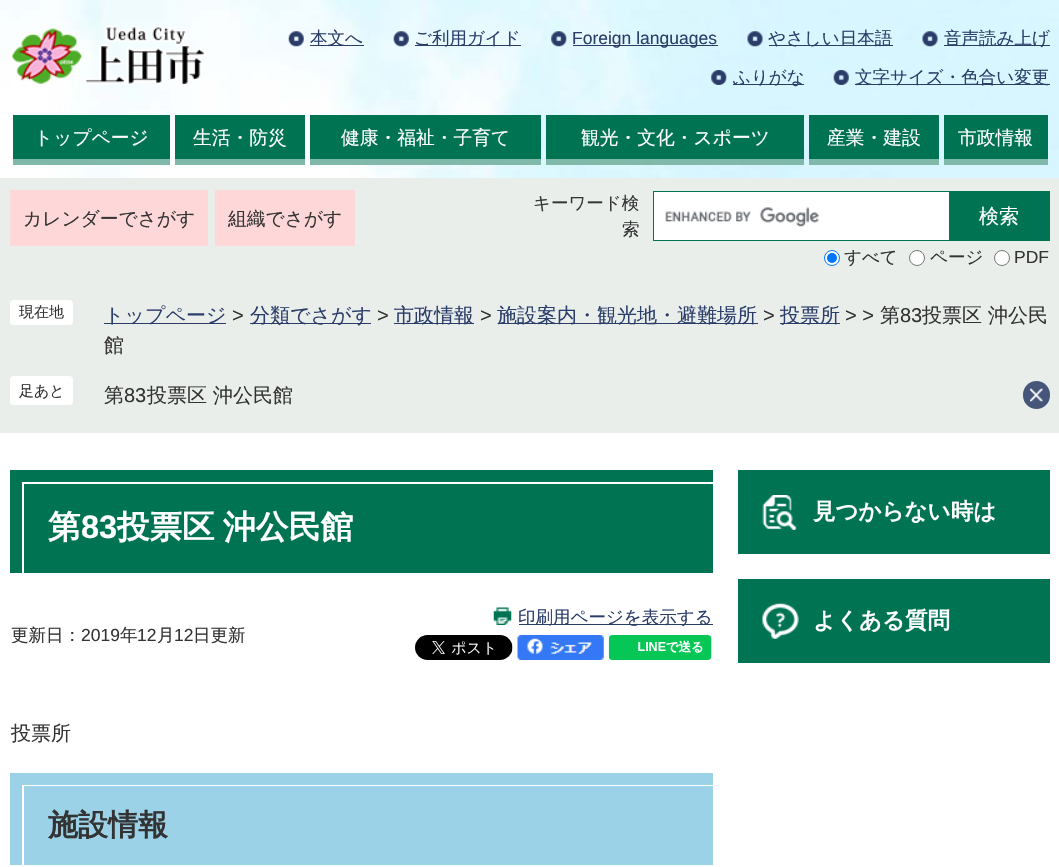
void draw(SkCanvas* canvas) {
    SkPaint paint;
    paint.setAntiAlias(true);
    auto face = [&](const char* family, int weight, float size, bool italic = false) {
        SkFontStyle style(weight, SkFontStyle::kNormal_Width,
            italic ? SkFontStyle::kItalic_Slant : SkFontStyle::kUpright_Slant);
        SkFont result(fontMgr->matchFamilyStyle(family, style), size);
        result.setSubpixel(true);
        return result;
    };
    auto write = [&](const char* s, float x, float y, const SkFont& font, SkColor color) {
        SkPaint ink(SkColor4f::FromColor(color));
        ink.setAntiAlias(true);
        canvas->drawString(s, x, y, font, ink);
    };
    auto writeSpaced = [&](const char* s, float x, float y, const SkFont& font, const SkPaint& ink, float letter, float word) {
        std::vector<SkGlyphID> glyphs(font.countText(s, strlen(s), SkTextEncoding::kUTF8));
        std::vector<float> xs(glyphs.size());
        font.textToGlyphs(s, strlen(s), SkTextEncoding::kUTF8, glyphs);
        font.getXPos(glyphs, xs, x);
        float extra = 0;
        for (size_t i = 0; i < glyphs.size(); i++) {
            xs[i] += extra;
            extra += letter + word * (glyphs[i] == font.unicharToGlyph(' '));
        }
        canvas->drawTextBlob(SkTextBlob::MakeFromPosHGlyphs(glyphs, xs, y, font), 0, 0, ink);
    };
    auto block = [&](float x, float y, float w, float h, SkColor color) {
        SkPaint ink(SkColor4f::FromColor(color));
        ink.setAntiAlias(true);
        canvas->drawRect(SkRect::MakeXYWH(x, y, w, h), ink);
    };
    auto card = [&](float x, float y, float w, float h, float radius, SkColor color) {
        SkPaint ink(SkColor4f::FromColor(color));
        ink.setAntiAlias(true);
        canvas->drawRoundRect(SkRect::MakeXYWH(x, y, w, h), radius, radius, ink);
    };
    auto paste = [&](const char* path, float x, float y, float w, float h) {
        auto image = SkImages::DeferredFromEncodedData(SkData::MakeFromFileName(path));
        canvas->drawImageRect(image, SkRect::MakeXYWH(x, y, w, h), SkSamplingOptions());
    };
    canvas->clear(SK_ColorWHITE);
    paste("pic1.png", 0, 0, 1059, 178);
    paste("pic2.png", 10, 25, 196, 61);
    paste("pic3.png", 288, 31, 16, 16);
    block(310, 45, 54, 1, SkColorSetRGB(43, 61, 105));
    auto kFont1 = face("WenQuanYi Zen Hei", 500, 17.5f);
    write("本文へ", 310, 44, kFont1, SkColorSetRGB(43, 61, 105));
    paste("pic4.png", 393, 31, 16, 16);
    block(415, 45, 106, 1, SkColorSetRGB(43, 61, 105));
    write("ご利用ガイド", 414, 44, kFont1, SkColorSetRGB(43, 61, 105));
    paste("pic5.png", 551, 31, 16, 16);
    block(573, 45, 145, 1, SkColorSetRGB(43, 61, 105));
    auto kFont2 = face("Liberation Sans", 400, 17.5f);
    write("Foreign languages", 572, 44, kFont2, SkColorSetRGB(43, 61, 105));
    paste("pic6.png", 747, 31, 16, 16);
    block(769, 45, 124, 1, SkColorSetRGB(43, 61, 105));
    write("やさしい日本語", 768, 44, kFont1, SkColorSetRGB(43, 61, 105));
    paste("pic7.png", 922, 31, 16, 16);
    block(944, 45, 106, 1, SkColorSetRGB(43, 61, 105));
    write("音声読み上げ", 944, 44, kFont1, SkColorSetRGB(43, 61, 105));
    paste("pic8.png", 711, 70, 16, 15);
    block(733, 84, 71, 1, SkColorSetRGB(43, 61, 105));
    write("ふりがな", 733, 83, kFont1, SkColorSetRGB(43, 61, 105));
    paste("pic9.png", 833, 70, 16, 15);
    block(855, 84, 195, 1, SkColorSetRGB(43, 61, 105));
    write("文字サイズ・色合い変更", 855, 83, kFont1, SkColorSetRGB(43, 61, 105));
    block(13, 115, 157, 44, SkColorSetRGB(0, 115, 83));
    block(13, 159, 157, 6, SkColorSetRGB(128, 185, 169));
    auto kFont3 = face("WenQuanYi Zen Hei", 500, 18.75f);
    write("トップページ", 34, 144, kFont3, SK_ColorWHITE);
    block(175, 115, 130, 44, SkColorSetRGB(0, 115, 83));
    block(175, 159, 130, 6, SkColorSetRGB(128, 185, 169));
    write("生活・防災", 193, 144, kFont3, SK_ColorWHITE);
    block(310, 115, 231, 44, SkColorSetRGB(0, 115, 83));
    block(310, 159, 231, 6, SkColorSetRGB(128, 185, 169));
    write("健康・福祉・子育て", 341, 144, kFont3, SK_ColorWHITE);
    block(546, 115, 258, 44, SkColorSetRGB(0, 115, 83));
    block(546, 159, 258, 6, SkColorSetRGB(128, 185, 169));
    write("観光・文化・スポーツ", 581, 144, kFont3, SK_ColorWHITE);
    block(809, 115, 130, 44, SkColorSetRGB(0, 115, 83));
    block(809, 159, 130, 6, SkColorSetRGB(128, 185, 169));
    write("産業・建設", 827, 144, kFont3, SK_ColorWHITE);
    block(944, 115, 104, 44, SkColorSetRGB(0, 115, 83));
    block(944, 159, 104, 6, SkColorSetRGB(128, 185, 169));
    write("市政情報", 958, 144, kFont3, SK_ColorWHITE);
    block(0, 178, 1059, 255, SkColorSetRGB(234, 238, 235));
    block(10, 190, 198, 56, SkColorSetRGB(254, 216, 216));
    write("カレンダーでさがす", 23, 225, kFont3, SkColorSetRGB(51, 51, 51));
    block(215, 190, 140, 56, SkColorSetRGB(254, 216, 216));
    write("組織でさがす", 228, 225, kFont3, SkColorSetRGB(51, 51, 51));
    write("キーワード検", 533, 209, kFont1, SkColorSetRGB(51, 51, 51));
    write("索", 622, 235, kFont1, SkColorSetRGB(51, 51, 51));
    block(654, 192, 295, 48, SK_ColorWHITE);
    paste("pic10.png", 665, 207, 154, 20);
    paint.setStyle(SkPaint::kStroke_Style);
    paint.setStrokeWidth(1);
    paint.setColor(SkColorSetRGB(0, 115, 83));
    canvas->drawRect(SkRect::MakeXYWH(653.5f, 191.5f, 296, 49), paint);
    block(950, 191, 100, 50, SkColorSetRGB(0, 115, 83));
    auto kFont4 = face("WenQuanYi Zen Hei", 500, 20);
    write("検索", 979, 223, kFont4, SK_ColorWHITE);
    paint.setStyle(SkPaint::kFill_Style);
    paint.setColor(SK_ColorWHITE);
    canvas->drawCircle(832, 258, 7.5f, paint);
    paint.setStyle(SkPaint::kStroke_Style);
    paint.setColor(SkColorSetRGB(0, 117, 255));
    canvas->drawCircle(832, 258, 7.5f, paint);
    paint.setStyle(SkPaint::kFill_Style);
    canvas->drawCircle(832, 258, 5, paint);
    write("すべて", 844, 263, kFont1, SkColorSetRGB(51, 51, 51));
    paint.setColor(SK_ColorWHITE);
    canvas->drawCircle(917, 258, 7.5f, paint);
    paint.setStyle(SkPaint::kStroke_Style);
    paint.setColor(SkColorSetRGB(118, 118, 118));
    canvas->drawCircle(917, 258, 7.5f, paint);
    write("ページ", 930, 263, kFont1, SkColorSetRGB(51, 51, 51));
    paint.setStyle(SkPaint::kFill_Style);
    paint.setColor(SK_ColorWHITE);
    canvas->drawCircle(1002, 258, 7.5f, paint);
    paint.setStyle(SkPaint::kStroke_Style);
    paint.setColor(SkColorSetRGB(118, 118, 118));
    canvas->drawCircle(1002, 258, 7.5f, paint);
    write("PDF", 1014, 263, kFont2, SkColorSetRGB(51, 51, 51));
    card(10, 300, 63, 25, 4, SK_ColorWHITE);
    auto kFont5 = face("WenQuanYi Zen Hei", 500, 15);
    write("現在地", 19, 317, kFont5, SkColorSetRGB(51, 51, 51));
    block(104, 323, 122, 1, SkColorSetRGB(43, 61, 105));
    write("トップページ", 104, 322, kFont4, SkColorSetRGB(43, 61, 105));
    auto kFont6 = face("Liberation Sans", 400, 20);
    write(">", 232, 322, kFont6, SkColorSetRGB(51, 51, 51));
    block(250, 323, 121, 1, SkColorSetRGB(43, 61, 105));
    write("分類でさがす", 250, 322, kFont4, SkColorSetRGB(43, 61, 105));
    write(">", 377, 322, kFont6, SkColorSetRGB(51, 51, 51));
    block(394, 323, 80, 1, SkColorSetRGB(43, 61, 105));
    write("市政情報", 394, 322, kFont4, SkColorSetRGB(43, 61, 105));
    write(">", 480, 322, kFont6, SkColorSetRGB(51, 51, 51));
    block(498, 323, 260, 1, SkColorSetRGB(43, 61, 105));
    write("施設案内・観光地・避難場所", 497, 322, kFont4, SkColorSetRGB(43, 61, 105));
    write(">", 763, 322, kFont6, SkColorSetRGB(51, 51, 51));
    block(780, 323, 60, 1, SkColorSetRGB(43, 61, 105));
    write("投票所", 780, 322, kFont4, SkColorSetRGB(43, 61, 105));
    write("> >", 845, 322, kFont6, SkColorSetRGB(51, 51, 51));
    write("第", 880, 322, kFont4, SkColorSetRGB(51, 51, 51));
    write("83", 900, 322, kFont6, SkColorSetRGB(51, 51, 51));
    write("投票区 沖公民", 922, 322, kFont4, SkColorSetRGB(51, 51, 51));
    write("館", 104, 352, kFont4, SkColorSetRGB(51, 51, 51));
    card(10, 376, 63, 29, 4, SK_ColorWHITE);
    write("足あと", 19, 396, kFont5, SkColorSetRGB(51, 51, 51));
    write("第", 104, 402, kFont4, SkColorSetRGB(51, 51, 51));
    write("83", 124, 402, kFont6, SkColorSetRGB(51, 51, 51));
    write("投票区 沖公民館", 147, 402, kFont4, SkColorSetRGB(51, 51, 51));
    card(1023, 381, 27, 28, 13.5f, SkColorSetRGB(70, 86, 123));
    paste("pic11.png", 1030, 388, 13, 14);
    block(24, 484, 689, 89, SkColorSetRGB(0, 115, 83));
    canvas->save();
    canvas->clipRect(SkRect::MakeXYWH(10, 470, 703, 103));
    paint.setStyle(SkPaint::kFill_Style);
    paint.setColor(SkColorSetRGB(0, 115, 83));
    canvas->drawPath(SkPathBuilder(SkPathFillType::kEvenOdd).moveTo(-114, 346).lineTo(836, 346).lineTo(836, 696).lineTo(-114, 696).close().moveTo(22, 482).lineTo(725, 482).lineTo(725, 585).lineTo(22, 585).close().detach(), paint);
    canvas->restore();
    auto kFont7 = face("WenQuanYi Zen Hei", 700, 32.5f);
    write("第", 48, 538, kFont7, SK_ColorWHITE);
    auto kFont8 = face("Liberation Sans", 700, 32.5f);
    write("83", 81, 538, kFont8, SK_ColorWHITE);
    paint.setColor(SK_ColorWHITE);
    writeSpaced("投票区 沖公民館", 117, 538, kFont7, paint, 0, -1);
    paste("pic12.png", 493, 607, 19, 18);
    block(519, 624, 194, 1, SkColorSetRGB(43, 61, 105));
    write("印刷用ページを表示する", 518, 623, kFont1, SkColorSetRGB(43, 61, 105));
    paste("pic13.png", 415, 635, 98, 25);
    paste("pic14.png", 517, 635, 87, 25);
    paste("pic15.png", 608, 635, 104, 25);
    write("更新日：", 11, 641, kFont1, SkColorSetRGB(51, 51, 51));
    write("2019", 81, 641, kFont2, SkColorSetRGB(51, 51, 51));
    write("年", 120, 641, kFont1, SkColorSetRGB(51, 51, 51));
    write("12", 137, 641, kFont2, SkColorSetRGB(51, 51, 51));
    write("月", 157, 641, kFont1, SkColorSetRGB(51, 51, 51));
    write("12", 174, 641, kFont2, SkColorSetRGB(51, 51, 51));
    write("日更新", 193, 641, kFont1, SkColorSetRGB(51, 51, 51));
    write("投票所", 11, 740, kFont4, SkColorSetRGB(51, 51, 51));
    block(24, 786, 689, 79, SkColorSetRGB(156, 210, 232));
    canvas->save();
    canvas->clipRect(SkRect::MakeXYWH(10, 773, 703, 92));
    paint.setColor(SkColorSetRGB(156, 210, 232));
    canvas->drawPath(SkPathBuilder(SkPathFillType::kEvenOdd).moveTo(-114, 649).lineTo(836, 649).lineTo(836, 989).lineTo(-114, 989).close().moveTo(22, 785).lineTo(725, 785).lineTo(725, 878).lineTo(22, 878).close().detach(), paint);
    canvas->restore();
    auto kFont9 = face("WenQuanYi Zen Hei", 700, 30);
    write("施設情報", 48, 835, kFont9, SkColorSetRGB(51, 51, 51));
    block(738, 470, 312, 84, SkColorSetRGB(0, 115, 83));
    paste("pic16.png", 762, 495, 35, 35);
    auto kFont10 = face("WenQuanYi Zen Hei", 700, 22.5f);
    write("見つからない時は", 813, 519, kFont10, SK_ColorWHITE);
    block(738, 579, 312, 84, SkColorSetRGB(0, 115, 83));
    paste("pic17.png", 762, 603, 37, 36);
    write("よくある質問", 813, 628, kFont10, SK_ColorWHITE);
}
